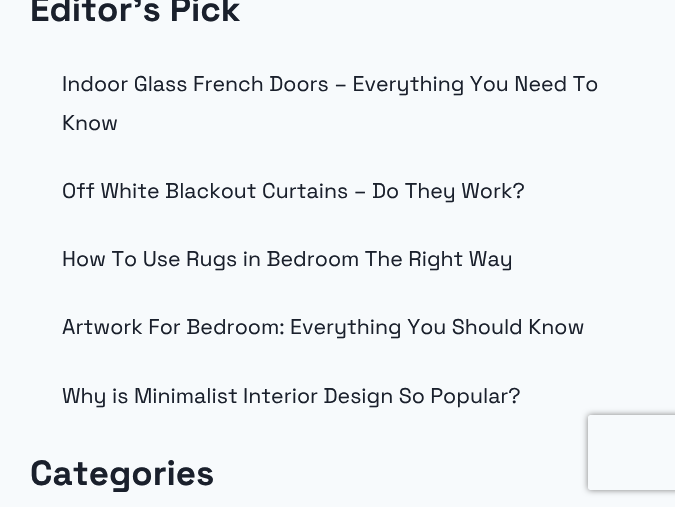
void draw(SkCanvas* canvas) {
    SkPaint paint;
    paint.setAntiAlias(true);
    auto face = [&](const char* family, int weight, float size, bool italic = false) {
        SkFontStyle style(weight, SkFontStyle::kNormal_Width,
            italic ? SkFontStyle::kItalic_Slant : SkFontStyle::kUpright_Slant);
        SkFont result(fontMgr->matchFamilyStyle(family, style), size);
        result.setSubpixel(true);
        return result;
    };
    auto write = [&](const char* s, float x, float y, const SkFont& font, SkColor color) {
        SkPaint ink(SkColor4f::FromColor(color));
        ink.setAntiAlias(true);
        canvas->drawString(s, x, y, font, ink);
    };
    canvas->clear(SkColorSetRGB(247, 250, 252));
    auto kFont1 = face("Space Grotesk", 700, 35);
    write("Editor's Pick", 30, 21, kFont1, SkColorSetRGB(26, 32, 44));
    auto kFont2 = face("Space Grotesk", 400, 21.25f);
    write("Indoor Glass French Doors – Everything You Need To", 62, 91, kFont2, SkColorSetRGB(26, 32, 44));
    write("Know", 62, 130, kFont2, SkColorSetRGB(26, 32, 44));
    write("Off White Blackout Curtains – Do They Work?", 62, 198, kFont2, SkColorSetRGB(26, 32, 44));
    write("How To Use Rugs in Bedroom The Right Way", 62, 266, kFont2, SkColorSetRGB(26, 32, 44));
    write("Artwork For Bedroom: Everything You Should Know", 62, 334, kFont2, SkColorSetRGB(26, 32, 44));
    write("Why is Minimalist Interior Design So Popular?", 62, 403, kFont2, SkColorSetRGB(26, 32, 44));
    write("Categories", 30, 485, kFont1, SkColorSetRGB(26, 32, 44));
    canvas->save();
    canvas->clipPath(SkPathBuilder(SkPathFillType::kEvenOdd).moveTo(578, 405).lineTo(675, 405).lineTo(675, 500).lineTo(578, 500).close().moveTo(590.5f, 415).lineTo(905.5f, 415).cubicTo(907, 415, 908, 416, 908, 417.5f).lineTo(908, 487.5f).cubicTo(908, 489, 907, 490, 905.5f, 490).lineTo(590.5f, 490).cubicTo(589, 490, 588, 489, 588, 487.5f).lineTo(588, 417.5f).cubicTo(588, 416, 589, 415, 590.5f, 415).close().detach(), true);
    paint.setColor(SkColorSetRGB(128, 128, 128));
    paint.setMaskFilter(SkMaskFilter::MakeBlur(kNormal_SkBlurStyle, 3));
    canvas->drawRoundRect(SkRect::MakeXYWH(588, 415, 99, 75), 2.5f, 2.5f, paint);
    paint.setMaskFilter(nullptr);
    canvas->restore();
}
